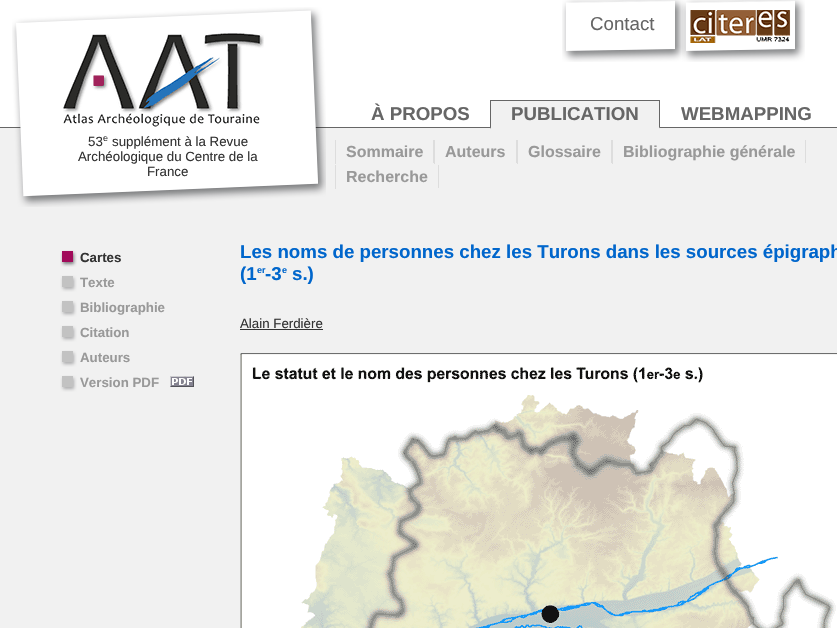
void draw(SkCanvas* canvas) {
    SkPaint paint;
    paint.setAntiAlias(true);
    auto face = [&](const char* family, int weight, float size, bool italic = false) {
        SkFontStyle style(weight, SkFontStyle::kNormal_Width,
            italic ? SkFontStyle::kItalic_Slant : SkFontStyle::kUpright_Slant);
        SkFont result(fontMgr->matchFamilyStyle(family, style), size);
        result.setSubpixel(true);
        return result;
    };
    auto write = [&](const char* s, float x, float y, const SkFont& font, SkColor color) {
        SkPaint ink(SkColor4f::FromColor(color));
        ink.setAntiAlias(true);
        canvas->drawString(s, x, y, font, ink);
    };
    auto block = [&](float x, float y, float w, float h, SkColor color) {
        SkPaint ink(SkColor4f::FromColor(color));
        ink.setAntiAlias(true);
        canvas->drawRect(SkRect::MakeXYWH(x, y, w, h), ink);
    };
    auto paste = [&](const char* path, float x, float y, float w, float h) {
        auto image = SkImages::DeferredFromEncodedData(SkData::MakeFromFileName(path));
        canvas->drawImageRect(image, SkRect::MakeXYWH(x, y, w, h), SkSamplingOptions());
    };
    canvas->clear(SkColorSetRGB(241, 241, 241));
    block(0, 0, 837, 127, SK_ColorWHITE);
    paste("pic1.png", 562, 0, 123, 62);
    auto kFont1 = face("Liberation Sans", 400, 18.7f);
    write("Contact", 590, 30, kFont1, SkColorSetRGB(102, 102, 102));
    paste("pic2.png", 682, 0, 123, 62);
    paste("pic3.png", 690, 10, 101, 33);
    block(0, 127, 837, 1, SkColorSetRGB(102, 102, 102));
    auto kFont2 = face("Liberation Sans", 700, 18.7f);
    write("À PROPOS", 371, 120, kFont2, SkColorSetRGB(102, 102, 102));
    block(491, 101, 168, 26, SkColorSetRGB(241, 241, 241));
    block(490, 100, 170, 1, SkColorSetRGB(102, 102, 102));
    paint.setColor(SkColorSetRGB(102, 102, 102));
    canvas->drawPath(SkPathBuilder().moveTo(660, 100).lineTo(660, 129).lineTo(659, 127).lineTo(659, 101).close().detach(), paint);
    paint.setColor(SkColorSetRGB(241, 241, 241));
    canvas->drawPath(SkPathBuilder().moveTo(660, 129).lineTo(490, 129).lineTo(491, 127).lineTo(659, 127).close().detach(), paint);
    paint.setColor(SkColorSetRGB(102, 102, 102));
    canvas->drawPath(SkPathBuilder().moveTo(490, 129).lineTo(490, 100).lineTo(491, 101).lineTo(491, 127).close().detach(), paint);
    write("PUBLICATION", 511, 120, kFont2, SkColorSetRGB(102, 102, 102));
    write("WEBMAPPING", 681, 120, kFont2, SkColorSetRGB(102, 102, 102));
    paste("pic4.png", 12, 7, 314, 200);
    paste("pic5.png", 63, 33, 201, 94);
    auto kFont3 = face("Liberation Sans", 400, 13.3f);
    write("53", 88, 146, kFont3, SkColorSetRGB(51, 51, 51));
    auto kFont4 = face("Liberation Sans", 400, 9);
    write("e", 103, 141, kFont4, SkColorSetRGB(51, 51, 51));
    write("supplément à la Revue", 112, 146, kFont3, SkColorSetRGB(51, 51, 51));
    write("Archéologique du Centre de la", 78, 161, kFont3, SkColorSetRGB(51, 51, 51));
    write("France", 147, 176, kFont3, SkColorSetRGB(51, 51, 51));
    block(433, 140, 2, 24, SkColorSetRGB(221, 221, 221));
    block(433, 163, 1, 1, SkColorSetRGB(241, 241, 241));
    block(335, 140, 1, 24, SkColorSetRGB(221, 221, 221));
    auto kFont5 = face("Liberation Sans", 700, 16);
    write("Sommaire", 346, 157, kFont5, SkColorSetRGB(153, 153, 153));
    block(516, 140, 2, 24, SkColorSetRGB(221, 221, 221));
    block(516, 163, 1, 1, SkColorSetRGB(241, 241, 241));
    write("Auteurs", 445, 157, kFont5, SkColorSetRGB(153, 153, 153));
    block(611, 140, 2, 24, SkColorSetRGB(221, 221, 221));
    block(611, 163, 1, 1, SkColorSetRGB(241, 241, 241));
    write("Glossaire", 528, 157, kFont5, SkColorSetRGB(153, 153, 153));
    block(805, 140, 1, 24, SkColorSetRGB(221, 221, 221));
    block(805, 163, 1, 1, SkColorSetRGB(241, 241, 241));
    write("Bibliographie générale", 623, 157, kFont5, SkColorSetRGB(153, 153, 153));
    block(438, 165, 1, 24, SkColorSetRGB(221, 221, 221));
    block(438, 188, 1, 1, SkColorSetRGB(241, 241, 241));
    block(335, 165, 1, 24, SkColorSetRGB(221, 221, 221));
    write("Recherche", 346, 182, kFont5, SkColorSetRGB(153, 153, 153));
    paste("pic6.png", 60, 250, 17, 17);
    auto kFont6 = face("Liberation Sans", 700, 13.3f);
    write("Cartes", 80, 262, kFont6, SkColorSetRGB(51, 51, 51));
    paste("pic7.png", 60, 275, 17, 17);
    write("Texte", 80, 287, kFont6, SkColorSetRGB(153, 153, 153));
    paste("pic7.png", 60, 300, 17, 17);
    write("Bibliographie", 80, 312, kFont6, SkColorSetRGB(153, 153, 153));
    paste("pic7.png", 60, 325, 17, 17);
    write("Citation", 80, 337, kFont6, SkColorSetRGB(153, 153, 153));
    paste("pic7.png", 60, 350, 17, 17);
    write("Auteurs", 80, 362, kFont6, SkColorSetRGB(153, 153, 153));
    paste("pic7.png", 60, 375, 17, 17);
    write("Version PDF", 80, 387, kFont6, SkColorSetRGB(153, 153, 153));
    paste("pic8.png", 170, 376, 24, 11);
    write("Les noms de personnes chez les Turons dans les sources épigraph", 240, 258, kFont2, SkColorSetRGB(0, 102, 204));
    write("(1", 240, 280, kFont2, SkColorSetRGB(0, 102, 204));
    auto kFont7 = face("Liberation Sans", 700, 9);
    write("er", 257, 273, kFont7, SkColorSetRGB(0, 102, 204));
    write("-3", 265, 280, kFont2, SkColorSetRGB(0, 102, 204));
    write("e", 282, 273, kFont7, SkColorSetRGB(0, 102, 204));
    write("s.)", 292, 280, kFont2, SkColorSetRGB(0, 102, 204));
    write("Alain Ferdière", 240, 328, kFont3, SkColorSetRGB(51, 51, 51));
    block(240, 329, 83, 1, SkColorSetRGB(51, 51, 51));
    paste("pic9.png", 240, 353, 597, 275);
}
